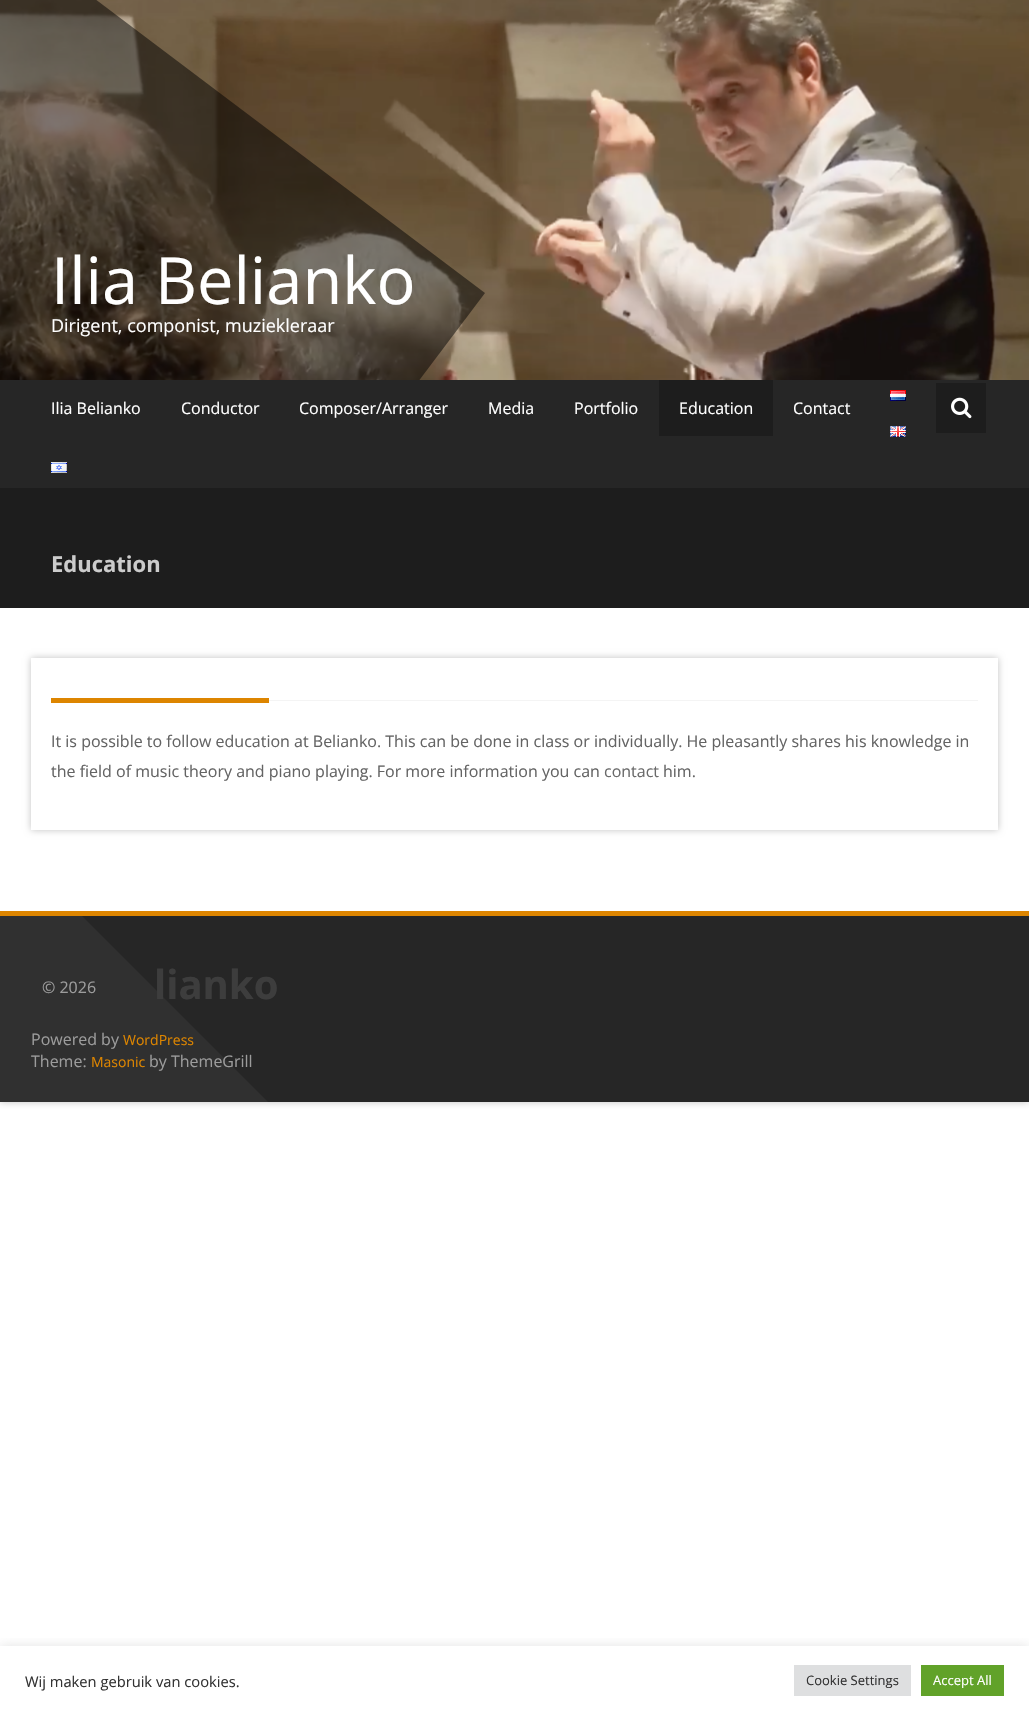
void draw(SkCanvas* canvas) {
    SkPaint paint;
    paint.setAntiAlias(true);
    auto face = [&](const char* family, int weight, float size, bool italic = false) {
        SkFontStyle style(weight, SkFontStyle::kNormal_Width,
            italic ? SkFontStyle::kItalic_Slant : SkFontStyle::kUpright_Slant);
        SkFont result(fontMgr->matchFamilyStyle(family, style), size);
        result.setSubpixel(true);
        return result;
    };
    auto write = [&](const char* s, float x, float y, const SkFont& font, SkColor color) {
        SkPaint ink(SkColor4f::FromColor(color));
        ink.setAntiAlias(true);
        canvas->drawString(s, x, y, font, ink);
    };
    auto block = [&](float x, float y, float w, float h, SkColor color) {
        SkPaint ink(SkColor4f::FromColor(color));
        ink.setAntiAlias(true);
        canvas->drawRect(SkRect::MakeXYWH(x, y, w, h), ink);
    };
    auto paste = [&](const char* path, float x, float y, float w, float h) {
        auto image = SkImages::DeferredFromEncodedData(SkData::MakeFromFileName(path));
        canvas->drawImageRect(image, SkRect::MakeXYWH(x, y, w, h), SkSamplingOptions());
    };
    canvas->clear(SK_ColorWHITE);
    canvas->save();
    canvas->clipRect(SkRect::MakeXYWH(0, 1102, 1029, 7));
    paint.setColor(SkColorSetRGB(194, 194, 194));
    paint.setMaskFilter(SkMaskFilter::MakeBlur(kNormal_SkBlurStyle, 3.5f));
    canvas->drawRect(SkRect::MakeXYWH(0, 0, 1029, 1102), paint);
    paint.setMaskFilter(nullptr);
    canvas->restore();
    paste("pic1.png", 0, 0, 1029, 380);
    canvas->save();
    canvas->clipRect(SkRect::MakeXYWH(0, 0, 1029, 380));
    paint.setColor(SkColorSetARGB(128, 0, 0, 0));
    canvas->drawPath(SkPathBuilder().moveTo(-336, -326).lineTo(485, 293).lineTo(-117, 1092).lineTo(-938, 473).close().detach(), paint);
    canvas->restore();
    auto kFont1 = face("Open Sans", 400, 65);
    write("Ilia Belianko", 51, 304, kFont1, SK_ColorWHITE);
    auto kFont2 = face("Open Sans", 400, 18);
    write("Dirigent, componist, muziekleraar", 51, 332, kFont2, SK_ColorWHITE);
    block(0, 380, 1029, 108, SkColorSetRGB(38, 38, 38));
    paste("pic2.png", 890, 390, 16, 11);
    auto kFont3 = face("Open Sans", 400, 16);
    write("Ilia Belianko", 51, 414, kFont3, SK_ColorWHITE);
    write("Conductor", 181, 414, kFont3, SK_ColorWHITE);
    write("Composer/Arranger", 299, 414, kFont3, SK_ColorWHITE);
    write("Media", 488, 414, kFont3, SK_ColorWHITE);
    write("Portfolio", 574, 414, kFont3, SK_ColorWHITE);
    block(659, 380, 114, 56, SkColorSetRGB(29, 29, 29));
    write("Education", 679, 414, kFont3, SK_ColorWHITE);
    write("Contact", 793, 414, kFont3, SK_ColorWHITE);
    paste("pic3.png", 890, 426, 16, 11);
    paste("pic4.png", 51, 462, 16, 11);
    block(936, 383, 50, 50, SkColorSetRGB(29, 29, 29));
    paste("pic5.png", 951, 397, 21, 22);
    block(0, 488, 1029, 120, SkColorSetRGB(29, 29, 29));
    auto kFont4 = face("Open Sans", 700, 22);
    write("Education", 51, 572, kFont4, SkColorSetRGB(204, 204, 204));
    canvas->save();
    canvas->clipPath(SkPathBuilder(SkPathFillType::kEvenOdd).moveTo(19, 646).lineTo(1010, 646).lineTo(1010, 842).lineTo(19, 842).close().moveTo(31, 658).lineTo(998, 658).lineTo(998, 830).lineTo(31, 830).close().detach(), true);
    paint.setColor(SkColorSetRGB(194, 194, 194));
    paint.setMaskFilter(SkMaskFilter::MakeBlur(kNormal_SkBlurStyle, 3.5f));
    canvas->drawRect(SkRect::MakeXYWH(31, 658, 967, 172), paint);
    paint.setMaskFilter(nullptr);
    canvas->restore();
    block(51, 698, 218, 5, SkColorSetRGB(221, 133, 0));
    block(269, 700, 709, 1, SkColorSetRGB(244, 244, 244));
    write("It is possible to follow education at Belianko. This can be done in class or individually. He pleasantly shares his knowledge in", 51, 747, kFont3, SkColorSetRGB(100, 100, 100));
    write("the field of music theory and piano playing. For more information you can", 51, 777, kFont3, SkColorSetRGB(100, 100, 100));
    write("contact", 604, 777, kFont3, SkColorSetRGB(106, 106, 106));
    write("him.", 663, 777, kFont3, SkColorSetRGB(100, 100, 100));
    block(82, 916, 947, 186, SkColorSetRGB(38, 38, 38));
    block(0, 911, 1029, 5, SkColorSetRGB(221, 133, 0));
    canvas->save();
    canvas->clipRect(SkRect::MakeXYWH(0, 916, 1029, 186));
    paint.setColor(SkColorSetRGB(48, 48, 48));
    canvas->drawPath(SkPathBuilder().moveTo(-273, 561).lineTo(455, 1289).lineTo(102, 1643).lineTo(-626, 915).close().detach(), paint);
    canvas->restore();
    write("© 2026", 42, 993, kFont3, SkColorSetRGB(156, 156, 156));
    auto kFont5 = face("Open Sans", 700, 40);
    write("lianko", 154, 999, kFont5, SkColorSetRGB(61, 61, 61));
    write("Powered by", 31, 1045, kFont3, SkColorSetRGB(156, 156, 156));
    auto kFont6 = face("Open Sans", 400, 14);
    write("WordPress", 123, 1045, kFont6, SkColorSetRGB(221, 133, 0));
    write("Theme:", 31, 1067, kFont3, SkColorSetRGB(156, 156, 156));
    write("Masonic", 91, 1067, kFont6, SkColorSetRGB(221, 133, 0));
    write("by ThemeGrill", 149, 1067, kFont3, SkColorSetRGB(156, 156, 156));
    canvas->save();
    canvas->clipRect(SkRect::MakeXYWH(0, 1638, 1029, 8));
    paint.setColor(SkColorSetARGB(77, 172, 171, 171));
    paint.setMaskFilter(SkMaskFilter::MakeBlur(kNormal_SkBlurStyle, 5));
    canvas->drawRect(SkRect::MakeXYWH(0, 1645, 1029, 69), paint);
    paint.setMaskFilter(nullptr);
    canvas->restore();
    auto kFont7 = face("Open Sans", 400, 14.7f);
    write("Wij maken gebruik van cookies.", 25, 1687, kFont7, SkColorSetRGB(51, 51, 51));
    block(794, 1665, 117, 31, SkColorSetRGB(222, 223, 224));
    auto kFont8 = face("Open Sans", 400, 13);
    write("Cookie Settings", 806, 1685, kFont8, SkColorSetRGB(51, 51, 51));
    block(921, 1665, 83, 31, SkColorSetRGB(97, 162, 41));
    write("Accept All", 933, 1685, kFont8, SK_ColorWHITE);
}
